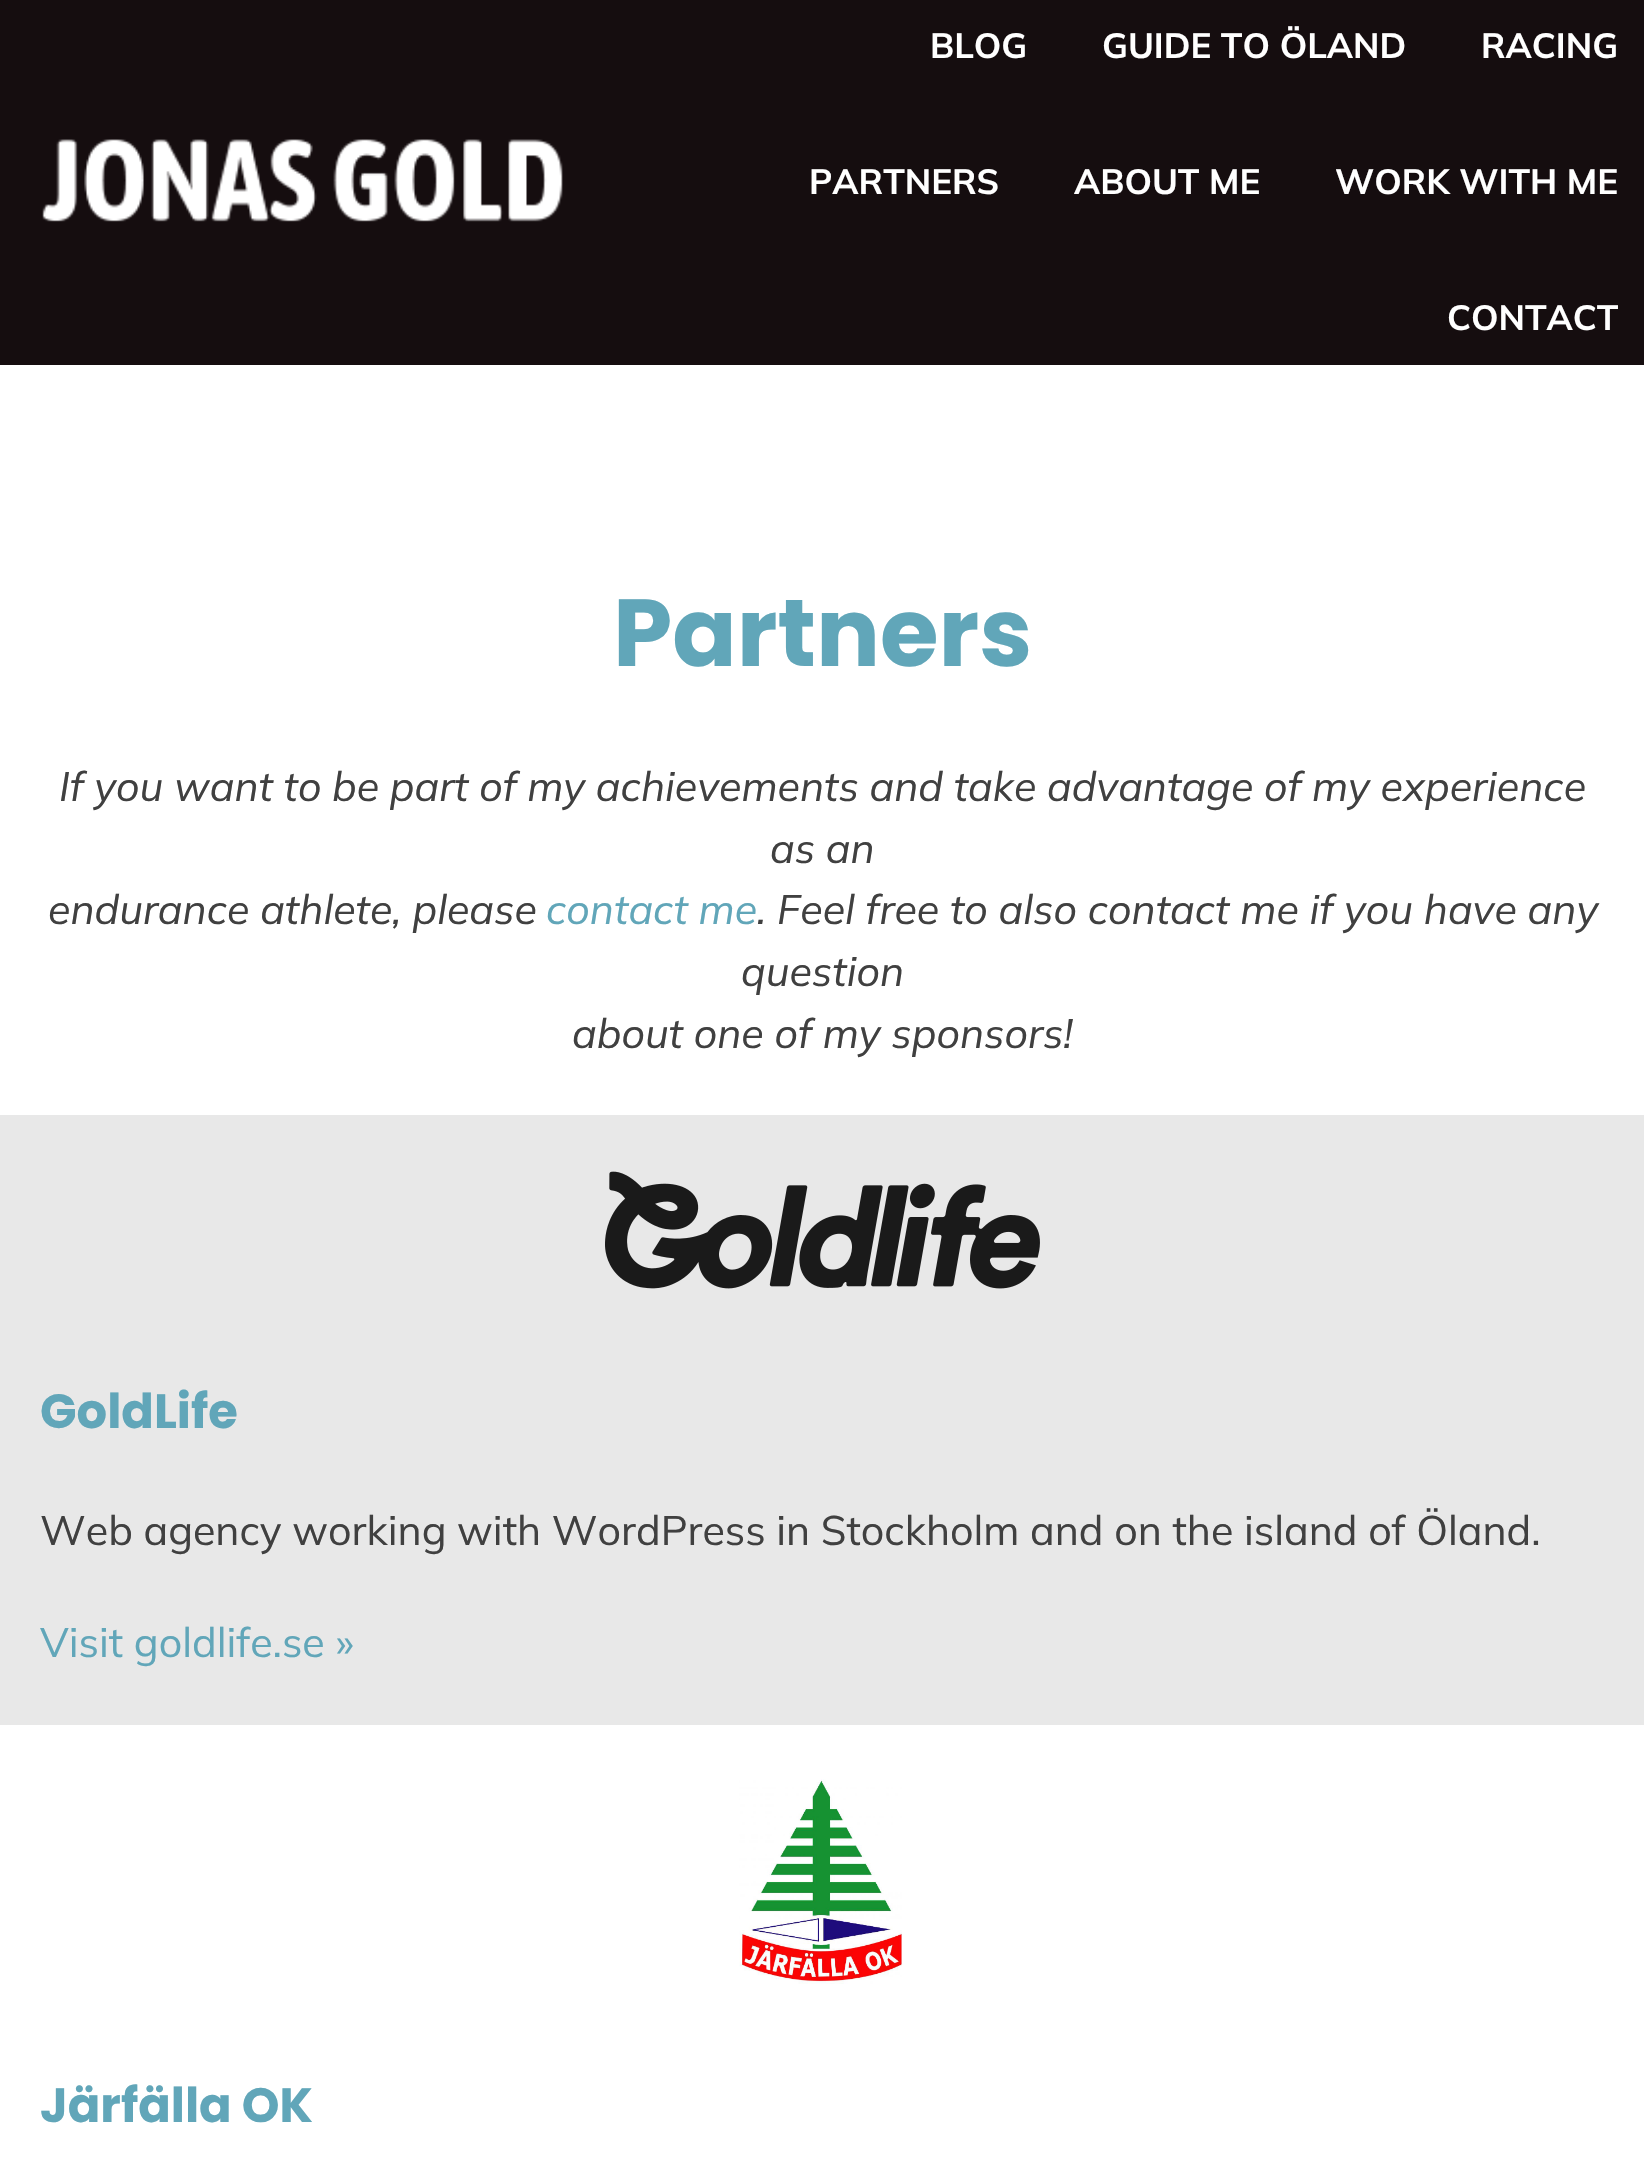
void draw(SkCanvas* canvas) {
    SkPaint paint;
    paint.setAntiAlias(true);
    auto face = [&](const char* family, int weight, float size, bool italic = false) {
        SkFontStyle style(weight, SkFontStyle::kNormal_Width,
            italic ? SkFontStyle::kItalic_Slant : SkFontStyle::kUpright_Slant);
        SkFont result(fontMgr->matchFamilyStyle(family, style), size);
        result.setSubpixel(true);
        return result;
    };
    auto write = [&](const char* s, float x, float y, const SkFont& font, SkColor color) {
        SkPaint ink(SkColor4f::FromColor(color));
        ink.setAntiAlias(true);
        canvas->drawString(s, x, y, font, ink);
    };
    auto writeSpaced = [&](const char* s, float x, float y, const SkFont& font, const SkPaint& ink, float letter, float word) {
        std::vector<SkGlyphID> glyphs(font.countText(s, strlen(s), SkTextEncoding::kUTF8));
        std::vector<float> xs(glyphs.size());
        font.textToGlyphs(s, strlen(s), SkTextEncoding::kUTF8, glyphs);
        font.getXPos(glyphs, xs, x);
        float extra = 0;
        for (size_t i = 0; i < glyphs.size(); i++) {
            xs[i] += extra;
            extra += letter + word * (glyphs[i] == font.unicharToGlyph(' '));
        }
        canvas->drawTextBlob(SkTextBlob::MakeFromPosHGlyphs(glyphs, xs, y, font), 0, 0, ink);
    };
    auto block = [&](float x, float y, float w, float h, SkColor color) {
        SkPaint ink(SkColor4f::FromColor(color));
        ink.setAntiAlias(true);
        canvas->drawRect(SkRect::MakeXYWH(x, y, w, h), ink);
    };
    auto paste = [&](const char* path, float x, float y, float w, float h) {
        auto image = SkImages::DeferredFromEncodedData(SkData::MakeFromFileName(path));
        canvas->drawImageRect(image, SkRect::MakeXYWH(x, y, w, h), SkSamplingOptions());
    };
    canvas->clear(SK_ColorWHITE);
    block(0, 0, 1644, 365, SkColorSetRGB(21, 13, 15));
    paste("pic1.png", 42, 139, 521, 83);
    auto kFont1 = face("Mulish", 700, 35);
    write("BLOG", 930, 58, kFont1, SK_ColorWHITE);
    write("GUIDE TO ÖLAND", 1102, 58, kFont1, SK_ColorWHITE);
    write("RACING", 1481, 58, kFont1, SK_ColorWHITE);
    write("PARTNERS", 809, 194, kFont1, SK_ColorWHITE);
    write("ABOUT ME", 1074, 194, kFont1, SK_ColorWHITE);
    write("WORK WITH ME", 1335, 194, kFont1, SK_ColorWHITE);
    write("CONTACT", 1447, 330, kFont1, SK_ColorWHITE);
    auto kFont2 = face("Poppins", 700, 95);
    write("Partners", 613, 666, kFont2, SkColorSetRGB(97, 166, 185));
    auto kFont3 = face("Mulish", 400, 41.15f, true);
    paint.setColor(SkColorSetRGB(64, 64, 64));
    writeSpaced("If you want to be part of my achievements and take advantage of my experience", 59, 801, kFont3, paint, 0, -0.1f);
    write("as an", 770, 863, kFont3, SkColorSetRGB(64, 64, 64));
    write("endurance athlete, please", 48, 924, kFont3, SkColorSetRGB(64, 64, 64));
    write("contact me", 546, 924, kFont3, SkColorSetRGB(97, 166, 185));
    write(". Feel free to also contact me if you have any", 757, 924, kFont3, SkColorSetRGB(64, 64, 64));
    write("question", 741, 986, kFont3, SkColorSetRGB(64, 64, 64));
    write("about one of my sponsors!", 572, 1048, kFont3, SkColorSetRGB(64, 64, 64));
    block(0, 1115, 1644, 610, SkColorSetRGB(232, 232, 232));
    paste("pic2.png", 605, 1171, 435, 118);
    auto kFont4 = face("Poppins", 700, 48);
    write("GoldLife", 40, 1428, kFont4, SkColorSetRGB(97, 166, 185));
    auto kFont5 = face("Mulish", 400, 41.15f);
    writeSpaced("Web agency working with WordPress in Stockholm and on the island of Öland.", 40, 1545, kFont5, paint, 0, -0.1f);
    write("Visit goldlife.se »", 40, 1657, kFont5, SkColorSetRGB(97, 166, 185));
    paste("pic3.png", 739, 1779, 163, 205);
    write("Järfälla OK", 40, 2122, kFont4, SkColorSetRGB(97, 166, 185));
}
